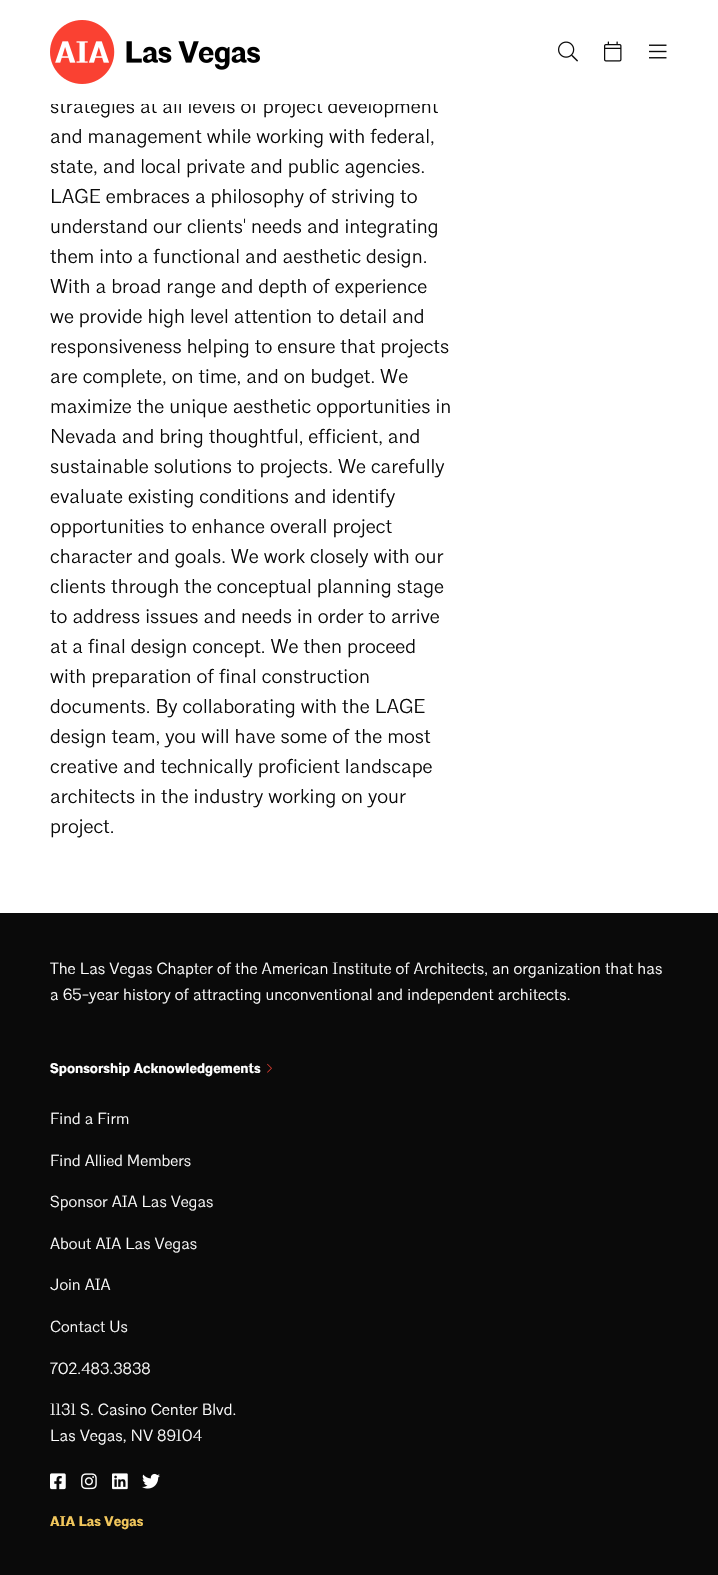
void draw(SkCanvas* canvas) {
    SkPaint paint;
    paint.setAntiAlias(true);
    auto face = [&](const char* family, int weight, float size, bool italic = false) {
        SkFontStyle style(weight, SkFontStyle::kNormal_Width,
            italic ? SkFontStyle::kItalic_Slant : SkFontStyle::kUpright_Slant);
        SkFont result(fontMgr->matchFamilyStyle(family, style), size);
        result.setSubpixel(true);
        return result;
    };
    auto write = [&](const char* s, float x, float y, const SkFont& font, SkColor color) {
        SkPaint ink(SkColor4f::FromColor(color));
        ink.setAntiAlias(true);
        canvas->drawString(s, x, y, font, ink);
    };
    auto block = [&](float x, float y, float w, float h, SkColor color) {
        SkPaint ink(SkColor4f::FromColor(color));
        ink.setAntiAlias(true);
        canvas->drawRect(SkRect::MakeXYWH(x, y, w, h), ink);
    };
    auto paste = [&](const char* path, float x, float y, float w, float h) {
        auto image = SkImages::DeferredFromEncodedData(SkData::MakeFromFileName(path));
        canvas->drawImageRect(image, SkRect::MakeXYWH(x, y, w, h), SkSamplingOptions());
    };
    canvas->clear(SK_ColorWHITE);
    auto kFont1 = face("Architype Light", 300, 20);
    write("strategies at all levels of project development", 50, 113, kFont1, SkColorSetRGB(10, 10, 10));
    block(52, 98, 386, 6, SK_ColorWHITE);
    paste("pic1.png", 50, 20, 210, 64);
    paste("pic2.png", 558, 41, 20, 21);
    paste("pic3.png", 604, 41, 18, 21);
    paste("pic4.png", 649, 44, 18, 15);
    write("and management while working with federal,", 50, 143, kFont1, SkColorSetRGB(10, 10, 10));
    write("state, and local private and public agencies.", 50, 173, kFont1, SkColorSetRGB(10, 10, 10));
    write("LAGE embraces a philosophy of striving to", 50, 203, kFont1, SkColorSetRGB(10, 10, 10));
    write("understand our clients' needs and integrating", 50, 233, kFont1, SkColorSetRGB(10, 10, 10));
    write("them into a functional and aesthetic design.", 50, 263, kFont1, SkColorSetRGB(10, 10, 10));
    write("With a broad range and depth of experience", 50, 293, kFont1, SkColorSetRGB(10, 10, 10));
    write("we provide high level attention to detail and", 50, 323, kFont1, SkColorSetRGB(10, 10, 10));
    write("responsiveness helping to ensure that projects", 50, 353, kFont1, SkColorSetRGB(10, 10, 10));
    write("are complete, on time, and on budget. We", 50, 383, kFont1, SkColorSetRGB(10, 10, 10));
    write("maximize the unique aesthetic opportunities in", 50, 413, kFont1, SkColorSetRGB(10, 10, 10));
    write("Nevada and bring thoughtful, efficient, and", 50, 443, kFont1, SkColorSetRGB(10, 10, 10));
    write("sustainable solutions to projects. We carefully", 50, 473, kFont1, SkColorSetRGB(10, 10, 10));
    write("evaluate existing conditions and identify", 50, 503, kFont1, SkColorSetRGB(10, 10, 10));
    write("opportunities to enhance overall project", 50, 533, kFont1, SkColorSetRGB(10, 10, 10));
    write("character and goals. We work closely with our", 50, 563, kFont1, SkColorSetRGB(10, 10, 10));
    write("clients through the conceptual planning stage", 50, 593, kFont1, SkColorSetRGB(10, 10, 10));
    write("to address issues and needs in order to arrive", 50, 623, kFont1, SkColorSetRGB(10, 10, 10));
    write("at a final design concept. We then proceed", 50, 653, kFont1, SkColorSetRGB(10, 10, 10));
    write("with preparation of final construction", 50, 683, kFont1, SkColorSetRGB(10, 10, 10));
    write("documents. By collaborating with the LAGE", 50, 713, kFont1, SkColorSetRGB(10, 10, 10));
    write("design team, you will have some of the most", 50, 743, kFont1, SkColorSetRGB(10, 10, 10));
    write("creative and technically proficient landscape", 50, 773, kFont1, SkColorSetRGB(10, 10, 10));
    write("architects in the industry working on your", 50, 803, kFont1, SkColorSetRGB(10, 10, 10));
    write("project.", 50, 833, kFont1, SkColorSetRGB(10, 10, 10));
    block(0, 913, 718, 662, SkColorSetRGB(10, 10, 10));
    auto kFont2 = face("Architype Light", 300, 16.2f);
    write("The Las Vegas Chapter of the American Institute of Architects, an organization that has", 50, 974, kFont2, SK_ColorWHITE);
    write("a 65-year history of attracting unconventional and independent architects.", 50, 1000, kFont2, SK_ColorWHITE);
    auto kFont3 = face("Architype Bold", 700, 14);
    write("Sponsorship Acknowledgements", 50, 1073, kFont3, SK_ColorWHITE);
    paste("pic5.png", 267, 1063, 5, 10);
    auto kFont4 = face("Architype Light", 300, 16);
    write("Find a Firm", 50, 1124, kFont4, SK_ColorWHITE);
    write("Find Allied Members", 50, 1166, kFont4, SK_ColorWHITE);
    write("Sponsor AIA Las Vegas", 50, 1207, kFont4, SK_ColorWHITE);
    write("About AIA Las Vegas", 50, 1249, kFont4, SK_ColorWHITE);
    write("Join AIA", 50, 1290, kFont4, SK_ColorWHITE);
    write("Contact Us", 50, 1332, kFont4, SK_ColorWHITE);
    write("702.483.3838", 50, 1374, kFont2, SK_ColorWHITE);
    write("1131 S. Casino Center Blvd.", 50, 1415, kFont2, SK_ColorWHITE);
    write("Las Vegas, NV 89104", 50, 1441, kFont2, SK_ColorWHITE);
    paste("pic6.png", 50, 1473, 16, 17);
    paste("pic7.png", 81, 1473, 16, 17);
    paste("pic8.png", 112, 1473, 16, 17);
    paste("pic9.png", 142, 1473, 18, 16);
    write("AIA Las Vegas", 50, 1526, kFont3, SkColorSetRGB(242, 199, 92));
}
